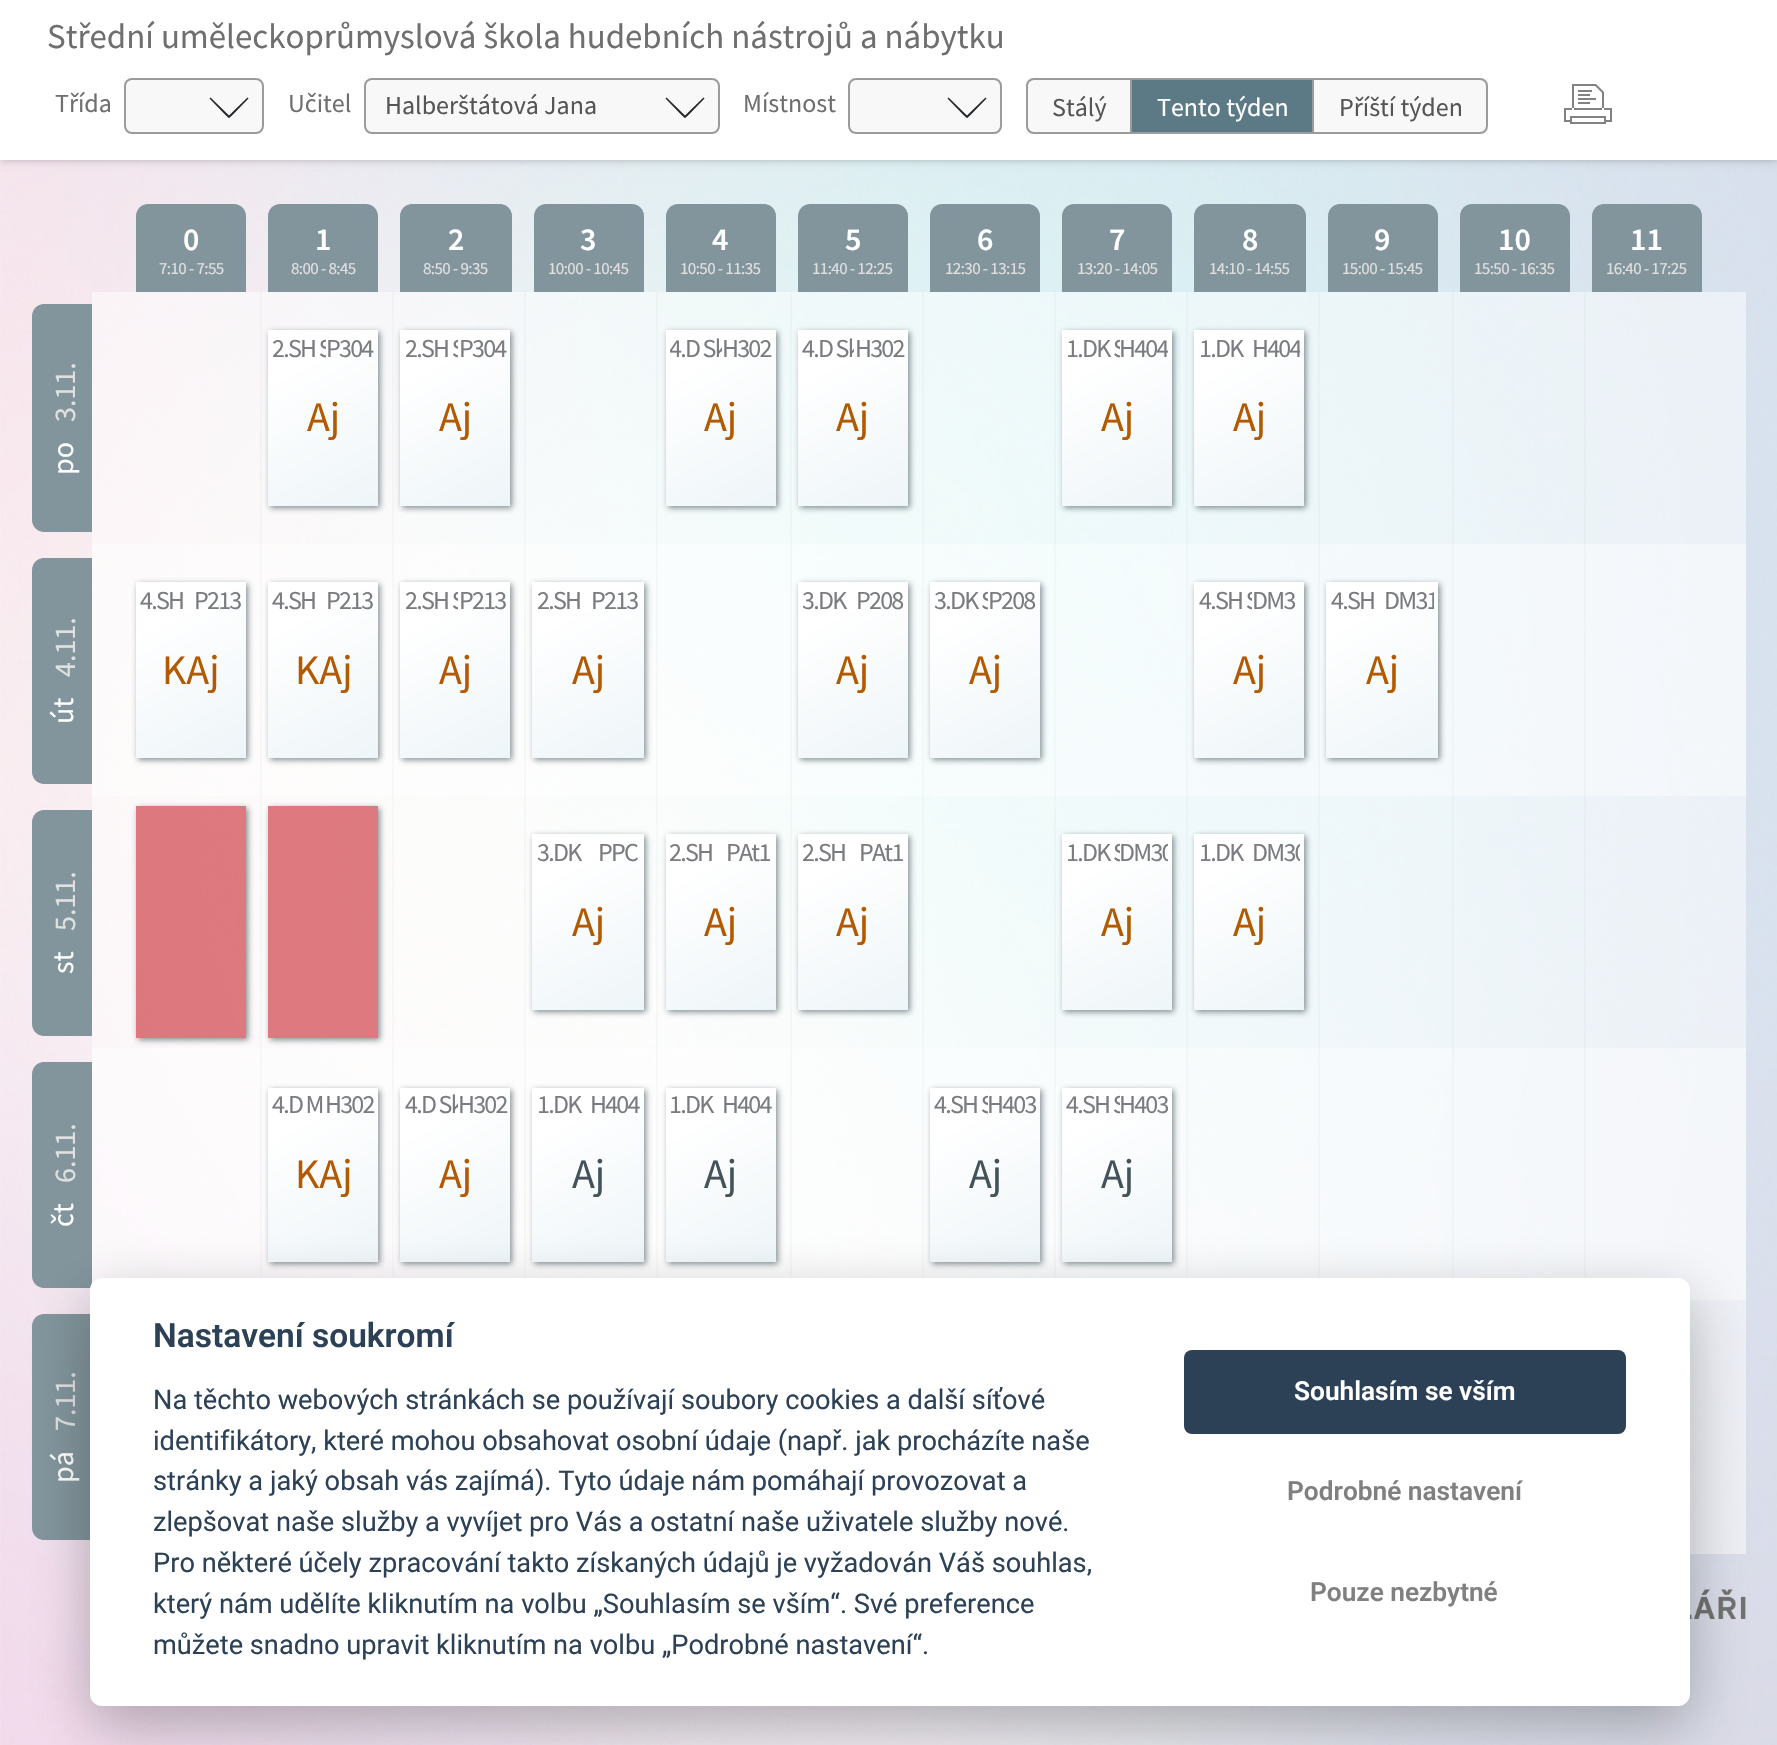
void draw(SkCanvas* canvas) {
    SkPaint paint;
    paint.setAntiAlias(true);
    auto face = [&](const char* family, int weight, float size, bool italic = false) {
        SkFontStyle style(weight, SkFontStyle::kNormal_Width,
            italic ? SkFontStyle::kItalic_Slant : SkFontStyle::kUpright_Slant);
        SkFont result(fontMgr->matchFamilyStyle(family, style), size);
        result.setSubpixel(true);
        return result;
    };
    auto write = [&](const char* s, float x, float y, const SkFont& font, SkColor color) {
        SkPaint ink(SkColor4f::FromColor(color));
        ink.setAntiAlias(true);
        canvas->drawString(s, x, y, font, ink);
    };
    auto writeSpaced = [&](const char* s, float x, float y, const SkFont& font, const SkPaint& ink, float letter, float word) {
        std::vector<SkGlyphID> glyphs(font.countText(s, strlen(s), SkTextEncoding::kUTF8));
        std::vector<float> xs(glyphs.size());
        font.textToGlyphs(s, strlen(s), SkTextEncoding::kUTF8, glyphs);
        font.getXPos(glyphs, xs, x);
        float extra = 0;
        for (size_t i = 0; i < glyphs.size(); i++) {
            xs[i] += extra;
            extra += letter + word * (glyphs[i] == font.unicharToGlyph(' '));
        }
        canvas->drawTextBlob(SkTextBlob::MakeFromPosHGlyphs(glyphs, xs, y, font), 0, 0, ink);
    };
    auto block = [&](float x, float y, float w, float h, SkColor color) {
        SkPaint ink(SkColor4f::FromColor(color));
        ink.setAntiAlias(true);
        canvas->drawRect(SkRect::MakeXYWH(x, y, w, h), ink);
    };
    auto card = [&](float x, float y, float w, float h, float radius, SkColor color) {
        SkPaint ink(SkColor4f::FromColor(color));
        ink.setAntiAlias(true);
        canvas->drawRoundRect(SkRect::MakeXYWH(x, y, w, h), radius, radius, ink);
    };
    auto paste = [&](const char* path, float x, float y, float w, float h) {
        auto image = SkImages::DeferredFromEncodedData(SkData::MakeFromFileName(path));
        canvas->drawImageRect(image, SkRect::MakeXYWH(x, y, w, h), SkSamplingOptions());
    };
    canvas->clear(SK_ColorWHITE);
    paste("pic1.png", 0, 160, 1777, 1585);
    paint.setColor(SkColorSetARGB(64, 0, 0, 0));
    paint.setMaskFilter(SkMaskFilter::MakeBlur(kNormal_SkBlurStyle, 4));
    canvas->drawRect(SkRect::MakeXYWH(0, 0, 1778, 160), paint);
    paint.setMaskFilter(nullptr);
    block(0, 0, 1777, 160, SK_ColorWHITE);
    auto kFont1 = face("Source Sans Pro", 400, 34.9f);
    write("Střední uměleckoprůmyslová škola hudebních nástrojů a nábytku", 47, 48, kFont1, SkColorSetRGB(111, 111, 111));
    auto kFont2 = face("Source Sans Pro", 400, 26);
    write("Třída", 55, 112, kFont2, SkColorSetRGB(111, 111, 111));
    paint.setColor(SkColorSetRGB(248, 248, 248));
    canvas->drawRoundRect(SkRect::MakeXYWH(125, 79, 138, 54), 7, 7, paint);
    paint.setStyle(SkPaint::kStroke_Style);
    paint.setStrokeWidth(2);
    paint.setColor(SkColorSetRGB(155, 155, 155));
    canvas->drawRoundRect(SkRect::MakeXYWH(125, 79, 138, 54), 7, 7, paint);
    paint.setStyle(SkPaint::kFill_Style);
    paint.setColor(SkColorSetRGB(33, 37, 41));
    canvas->drawPath(SkPathBuilder().moveTo(229, 115.5f).lineTo(247.5f, 97.5f).lineTo(248.5f, 98.5f).lineTo(233, 114.5f).cubicTo(228, 119, 230, 119, 225, 114.5f).lineTo(209.5f, 98.5f).lineTo(210.5f, 97.5f).close().detach(), paint);
    write("Učitel", 288, 112, kFont2, SkColorSetRGB(111, 111, 111));
    paint.setColor(SkColorSetRGB(248, 248, 248));
    canvas->drawRoundRect(SkRect::MakeXYWH(365, 79, 354, 54), 7, 7, paint);
    paint.setStyle(SkPaint::kStroke_Style);
    paint.setColor(SkColorSetRGB(155, 155, 155));
    canvas->drawRoundRect(SkRect::MakeXYWH(365, 79, 354, 54), 7, 7, paint);
    write("Halberštátová Jana", 385, 114, kFont2, SkColorSetRGB(85, 85, 85));
    paint.setStyle(SkPaint::kFill_Style);
    paint.setColor(SkColorSetRGB(33, 37, 41));
    canvas->drawPath(SkPathBuilder().moveTo(685, 115.5f).lineTo(703.5f, 97.5f).lineTo(704.5f, 98.5f).lineTo(689, 114.5f).cubicTo(684, 119, 686, 119, 681, 114.5f).lineTo(665.5f, 98.5f).lineTo(666.5f, 97.5f).close().detach(), paint);
    write("Místnost", 743, 112, kFont2, SkColorSetRGB(111, 111, 111));
    paint.setColor(SkColorSetRGB(248, 248, 248));
    canvas->drawRoundRect(SkRect::MakeXYWH(849, 79, 152, 54), 7, 7, paint);
    paint.setStyle(SkPaint::kStroke_Style);
    paint.setColor(SkColorSetRGB(155, 155, 155));
    canvas->drawRoundRect(SkRect::MakeXYWH(849, 79, 152, 54), 7, 7, paint);
    paint.setStyle(SkPaint::kFill_Style);
    paint.setColor(SkColorSetRGB(33, 37, 41));
    canvas->drawPath(SkPathBuilder().moveTo(967, 115.5f).lineTo(985.5f, 97.5f).lineTo(986.5f, 98.5f).lineTo(971, 114.5f).cubicTo(966, 119, 968, 119, 963, 114.5f).lineTo(947.5f, 98.5f).lineTo(948.5f, 97.5f).close().detach(), paint);
    block(1026, 78, 462, 56, SkColorSetRGB(248, 248, 248));
    paint.setStyle(SkPaint::kStroke_Style);
    paint.setColor(SkColorSetRGB(155, 155, 155));
    canvas->drawPath(SkPathBuilder().moveTo(1034, 79).lineTo(1131, 79).lineTo(1131, 133).lineTo(1034, 133).cubicTo(1030, 133, 1027, 130, 1027, 126).lineTo(1027, 86).cubicTo(1027, 82, 1030, 79, 1034, 79).close().detach(), paint);
    write("Stálý", 1052, 116, kFont2, SkColorSetRGB(85, 85, 85));
    canvas->drawPath(SkPathBuilder().moveTo(1313, 79).lineTo(1480, 79).cubicTo(1484, 79, 1487, 82, 1487, 86).lineTo(1487, 126).cubicTo(1487, 130, 1484, 133, 1480, 133).lineTo(1313, 133).close().detach(), paint);
    paint.setStyle(SkPaint::kFill_Style);
    paint.setColor(SkColorSetRGB(92, 121, 134));
    canvas->drawRect(SkRect::MakeXYWH(1131, 79, 182, 54), paint);
    paint.setStyle(SkPaint::kStroke_Style);
    paint.setColor(SkColorSetRGB(155, 155, 155));
    canvas->drawRect(SkRect::MakeXYWH(1131, 79, 182, 54), paint);
    write("Tento týden", 1157, 116, kFont2, SK_ColorWHITE);
    write("Příští týden", 1339, 116, kFont2, SkColorSetRGB(85, 85, 85));
    paste("pic2.png", 1564, 84, 48, 40);
    paint.setStyle(SkPaint::kFill_Style);
    paint.setColor(SkColorSetRGB(130, 149, 156));
    canvas->drawPath(SkPathBuilder().moveTo(148, 204).lineTo(234, 204).cubicTo(240.5f, 204, 246, 209.5f, 246, 216).lineTo(246, 292).lineTo(136, 292).lineTo(136, 216).cubicTo(136, 209.5f, 141.5f, 204, 148, 204).close().detach(), paint);
    auto kFont3 = face("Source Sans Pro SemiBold", 600, 32);
    write("0", 183, 250, kFont3, SK_ColorWHITE);
    auto kFont4 = face("Source Sans Pro", 400, 17);
    paint.setColor(SkColorSetRGB(224, 224, 224));
    writeSpaced("7:10 - 7:55", 159, 274, kFont4, paint, -0.6f, 0);
    paint.setColor(SkColorSetRGB(130, 149, 156));
    canvas->drawPath(SkPathBuilder().moveTo(280, 204).lineTo(366, 204).cubicTo(372.5f, 204, 378, 209.5f, 378, 216).lineTo(378, 292).lineTo(268, 292).lineTo(268, 216).cubicTo(268, 209.5f, 273.5f, 204, 280, 204).close().detach(), paint);
    write("1", 315, 250, kFont3, SK_ColorWHITE);
    paint.setColor(SkColorSetRGB(224, 224, 224));
    writeSpaced("8:00 - 8:45", 291, 274, kFont4, paint, -0.6f, 0);
    paint.setColor(SkColorSetRGB(130, 149, 156));
    canvas->drawPath(SkPathBuilder().moveTo(412, 204).lineTo(500, 204).cubicTo(506.5f, 204, 512, 209.5f, 512, 216).lineTo(512, 292).lineTo(400, 292).lineTo(400, 216).cubicTo(400, 209.5f, 405.5f, 204, 412, 204).close().detach(), paint);
    write("2", 448, 250, kFont3, SK_ColorWHITE);
    paint.setColor(SkColorSetRGB(224, 224, 224));
    writeSpaced("8:50 - 9:35", 423, 274, kFont4, paint, -0.6f, 0);
    paint.setColor(SkColorSetRGB(130, 149, 156));
    canvas->drawPath(SkPathBuilder().moveTo(546, 204).lineTo(632, 204).cubicTo(638.5f, 204, 644, 209.5f, 644, 216).lineTo(644, 292).lineTo(534, 292).lineTo(534, 216).cubicTo(534, 209.5f, 539.5f, 204, 546, 204).close().detach(), paint);
    write("3", 580, 250, kFont3, SK_ColorWHITE);
    paint.setColor(SkColorSetRGB(224, 224, 224));
    writeSpaced("10:00 - 10:45", 548, 274, kFont4, paint, -0.6f, 0);
    paint.setColor(SkColorSetRGB(130, 149, 156));
    canvas->drawPath(SkPathBuilder().moveTo(678, 204).lineTo(764, 204).cubicTo(770.5f, 204, 776, 209.5f, 776, 216).lineTo(776, 292).lineTo(666, 292).lineTo(666, 216).cubicTo(666, 209.5f, 671.5f, 204, 678, 204).close().detach(), paint);
    write("4", 712, 250, kFont3, SK_ColorWHITE);
    paint.setColor(SkColorSetRGB(224, 224, 224));
    writeSpaced("10:50 - 11:35", 680, 274, kFont4, paint, -0.6f, 0);
    paint.setColor(SkColorSetRGB(130, 149, 156));
    canvas->drawPath(SkPathBuilder().moveTo(810, 204).lineTo(896, 204).cubicTo(902.5f, 204, 908, 209.5f, 908, 216).lineTo(908, 292).lineTo(798, 292).lineTo(798, 216).cubicTo(798, 209.5f, 803.5f, 204, 810, 204).close().detach(), paint);
    write("5", 845, 250, kFont3, SK_ColorWHITE);
    paint.setColor(SkColorSetRGB(224, 224, 224));
    writeSpaced("11:40 - 12:25", 812, 274, kFont4, paint, -0.6f, 0);
    paint.setColor(SkColorSetRGB(130, 149, 156));
    canvas->drawPath(SkPathBuilder().moveTo(942, 204).lineTo(1028, 204).cubicTo(1034.5f, 204, 1040, 209.5f, 1040, 216).lineTo(1040, 292).lineTo(930, 292).lineTo(930, 216).cubicTo(930, 209.5f, 935.5f, 204, 942, 204).close().detach(), paint);
    write("6", 977, 250, kFont3, SK_ColorWHITE);
    paint.setColor(SkColorSetRGB(224, 224, 224));
    writeSpaced("12:30 - 13:15", 945, 274, kFont4, paint, -0.6f, 0);
    paint.setColor(SkColorSetRGB(130, 149, 156));
    canvas->drawPath(SkPathBuilder().moveTo(1074, 204).lineTo(1160, 204).cubicTo(1166.5f, 204, 1172, 209.5f, 1172, 216).lineTo(1172, 292).lineTo(1062, 292).lineTo(1062, 216).cubicTo(1062, 209.5f, 1067.5f, 204, 1074, 204).close().detach(), paint);
    write("7", 1109, 250, kFont3, SK_ColorWHITE);
    paint.setColor(SkColorSetRGB(224, 224, 224));
    writeSpaced("13:20 - 14:05", 1077, 274, kFont4, paint, -0.6f, 0);
    paint.setColor(SkColorSetRGB(130, 149, 156));
    canvas->drawPath(SkPathBuilder().moveTo(1206, 204).lineTo(1294, 204).cubicTo(1300.5f, 204, 1306, 209.5f, 1306, 216).lineTo(1306, 292).lineTo(1194, 292).lineTo(1194, 216).cubicTo(1194, 209.5f, 1199.5f, 204, 1206, 204).close().detach(), paint);
    write("8", 1242, 250, kFont3, SK_ColorWHITE);
    paint.setColor(SkColorSetRGB(224, 224, 224));
    writeSpaced("14:10 - 14:55", 1209, 274, kFont4, paint, -0.6f, 0);
    paint.setColor(SkColorSetRGB(130, 149, 156));
    canvas->drawPath(SkPathBuilder().moveTo(1340, 204).lineTo(1426, 204).cubicTo(1432.5f, 204, 1438, 209.5f, 1438, 216).lineTo(1438, 292).lineTo(1328, 292).lineTo(1328, 216).cubicTo(1328, 209.5f, 1333.5f, 204, 1340, 204).close().detach(), paint);
    write("9", 1374, 250, kFont3, SK_ColorWHITE);
    paint.setColor(SkColorSetRGB(224, 224, 224));
    writeSpaced("15:00 - 15:45", 1342, 274, kFont4, paint, -0.6f, 0);
    paint.setColor(SkColorSetRGB(130, 149, 156));
    canvas->drawPath(SkPathBuilder().moveTo(1472, 204).lineTo(1558, 204).cubicTo(1564.5f, 204, 1570, 209.5f, 1570, 216).lineTo(1570, 292).lineTo(1460, 292).lineTo(1460, 216).cubicTo(1460, 209.5f, 1465.5f, 204, 1472, 204).close().detach(), paint);
    write("10", 1498, 250, kFont3, SK_ColorWHITE);
    paint.setColor(SkColorSetRGB(224, 224, 224));
    writeSpaced("15:50 - 16:35", 1474, 274, kFont4, paint, -0.6f, 0);
    paint.setColor(SkColorSetRGB(130, 149, 156));
    canvas->drawPath(SkPathBuilder().moveTo(1604, 204).lineTo(1690, 204).cubicTo(1696.5f, 204, 1702, 209.5f, 1702, 216).lineTo(1702, 292).lineTo(1592, 292).lineTo(1592, 216).cubicTo(1592, 209.5f, 1597.5f, 204, 1604, 204).close().detach(), paint);
    write("11", 1630, 250, kFont3, SK_ColorWHITE);
    paint.setColor(SkColorSetRGB(224, 224, 224));
    writeSpaced("16:40 - 17:25", 1606, 274, kFont4, paint, -0.6f, 0);
    paint.setColor(SkColorSetRGB(130, 149, 156));
    canvas->drawPath(SkPathBuilder().moveTo(44, 304).lineTo(92, 304).lineTo(92, 532).lineTo(44, 532).cubicTo(37.5f, 532, 32, 526.5f, 32, 520).lineTo(32, 316).cubicTo(32, 309.5f, 37.5f, 304, 44, 304).close().detach(), paint);
    auto kFont5 = face("Source Sans Pro", 400, 30);
    canvas->save();
    canvas->rotate(-90, 75, 422);
    write("3.11.", 75, 422, kFont5, SkColorSetRGB(224, 224, 224));
    canvas->restore();
    canvas->save();
    canvas->rotate(-90, 73, 475);
    write("po", 73, 475, kFont5, SK_ColorWHITE);
    canvas->restore();
    block(92, 292, 1654, 252, SkColorSetARGB(128, 255, 255, 255));
    block(260, 292, 2, 252, SkColorSetARGB(8, 67, 83, 89));
    paint.setColor(SkColorSetARGB(166, 67, 83, 89));
    paint.setMaskFilter(SkMaskFilter::MakeBlur(kNormal_SkBlurStyle, 3));
    canvas->drawRect(SkRect::MakeXYWH(270, 332, 110, 176), paint);
    paint.setMaskFilter(nullptr);
    {
        const SkColor colors[] = {SK_ColorWHITE, SkColorSetRGB(238, 245, 248)};
        const float stops[] = {0.21f, 1};
        const SkPoint ends[] = {{274, 327}, {372, 509}};
        paint.setShader(SkGradientShader::MakeLinear(ends, colors, stops, 2, SkTileMode::kClamp));
        paint.setAlpha(255);
    }
    canvas->drawRect(SkRect::MakeXYWH(268, 330, 110, 176), paint);
    canvas->save();
    canvas->clipRect(SkRect::MakeXYWH(272, 334, 54, 54));
    paint.setShader(nullptr);
    paint.setColor(SkColorSetRGB(122, 124, 127));
    writeSpaced("2.SH S", 272, 357, kFont2, paint, -1.75f, 0);
    canvas->restore();
    writeSpaced("P304", 326, 357, kFont2, paint, -1.75f, 0);
    auto kFont6 = face("Source Sans Pro", 400, 42);
    write("Aj", 307, 431, kFont6, SkColorSetRGB(179, 89, 0));
    block(392, 292, 2, 252, SkColorSetARGB(8, 67, 83, 89));
    paint.setColor(SkColorSetARGB(166, 67, 83, 89));
    paint.setMaskFilter(SkMaskFilter::MakeBlur(kNormal_SkBlurStyle, 3));
    canvas->drawRect(SkRect::MakeXYWH(402, 332, 110, 176), paint);
    paint.setMaskFilter(nullptr);
    {
        const SkColor colors[] = {SK_ColorWHITE, SkColorSetRGB(238, 245, 248)};
        const float stops[] = {0.21f, 1};
        const SkPoint ends[] = {{406, 327}, {504, 509}};
        paint.setShader(SkGradientShader::MakeLinear(ends, colors, stops, 2, SkTileMode::kClamp));
        paint.setAlpha(255);
    }
    canvas->drawRect(SkRect::MakeXYWH(400, 330, 110, 176), paint);
    canvas->save();
    canvas->clipRect(SkRect::MakeXYWH(404, 334, 54, 54));
    paint.setShader(nullptr);
    paint.setColor(SkColorSetRGB(122, 124, 127));
    writeSpaced("2.SH S", 405, 357, kFont2, paint, -1.75f, 0);
    canvas->restore();
    writeSpaced("P304", 459, 357, kFont2, paint, -1.75f, 0);
    write("Aj", 439, 431, kFont6, SkColorSetRGB(179, 89, 0));
    block(524, 292, 2, 252, SkColorSetARGB(8, 67, 83, 89));
    block(656, 292, 2, 252, SkColorSetARGB(8, 67, 83, 89));
    paint.setColor(SkColorSetARGB(166, 67, 83, 89));
    paint.setMaskFilter(SkMaskFilter::MakeBlur(kNormal_SkBlurStyle, 3));
    canvas->drawRect(SkRect::MakeXYWH(668, 332, 110, 176), paint);
    paint.setMaskFilter(nullptr);
    {
        const SkColor colors[] = {SK_ColorWHITE, SkColorSetRGB(238, 245, 248)};
        const float stops[] = {0.21f, 1};
        const SkPoint ends[] = {{672, 327}, {770, 509}};
        paint.setShader(SkGradientShader::MakeLinear(ends, colors, stops, 2, SkTileMode::kClamp));
        paint.setAlpha(255);
    }
    canvas->drawRect(SkRect::MakeXYWH(666, 330, 110, 176), paint);
    canvas->save();
    canvas->clipRect(SkRect::MakeXYWH(670, 334, 52, 54));
    paint.setShader(nullptr);
    paint.setColor(SkColorSetRGB(122, 124, 127));
    writeSpaced("4.D Sk", 669, 357, kFont2, paint, -1.75f, 0);
    canvas->restore();
    writeSpaced("H302", 722, 357, kFont2, paint, -1.75f, 0);
    write("Aj", 704, 431, kFont6, SkColorSetRGB(179, 89, 0));
    block(790, 292, 2, 252, SkColorSetARGB(8, 67, 83, 89));
    paint.setColor(SkColorSetARGB(166, 67, 83, 89));
    paint.setMaskFilter(SkMaskFilter::MakeBlur(kNormal_SkBlurStyle, 3));
    canvas->drawRect(SkRect::MakeXYWH(800, 332, 110, 176), paint);
    paint.setMaskFilter(nullptr);
    {
        const SkColor colors[] = {SK_ColorWHITE, SkColorSetRGB(238, 245, 248)};
        const float stops[] = {0.21f, 1};
        const SkPoint ends[] = {{804, 327}, {902, 509}};
        paint.setShader(SkGradientShader::MakeLinear(ends, colors, stops, 2, SkTileMode::kClamp));
        paint.setAlpha(255);
    }
    canvas->drawRect(SkRect::MakeXYWH(798, 330, 110, 176), paint);
    canvas->save();
    canvas->clipRect(SkRect::MakeXYWH(802, 334, 52, 54));
    paint.setShader(nullptr);
    paint.setColor(SkColorSetRGB(122, 124, 127));
    writeSpaced("4.D Sk", 802, 357, kFont2, paint, -1.75f, 0);
    canvas->restore();
    writeSpaced("H302", 855, 357, kFont2, paint, -1.75f, 0);
    write("Aj", 836, 431, kFont6, SkColorSetRGB(179, 89, 0));
    block(922, 292, 2, 252, SkColorSetARGB(8, 67, 83, 89));
    block(1054, 292, 2, 252, SkColorSetARGB(8, 67, 83, 89));
    paint.setColor(SkColorSetARGB(166, 67, 83, 89));
    paint.setMaskFilter(SkMaskFilter::MakeBlur(kNormal_SkBlurStyle, 3));
    canvas->drawRect(SkRect::MakeXYWH(1064, 332, 110, 176), paint);
    paint.setMaskFilter(nullptr);
    {
        const SkColor colors[] = {SK_ColorWHITE, SkColorSetRGB(238, 245, 248)};
        const float stops[] = {0.21f, 1};
        const SkPoint ends[] = {{1068, 327}, {1166, 509}};
        paint.setShader(SkGradientShader::MakeLinear(ends, colors, stops, 2, SkTileMode::kClamp));
        paint.setAlpha(255);
    }
    canvas->drawRect(SkRect::MakeXYWH(1062, 330, 110, 176), paint);
    canvas->save();
    canvas->clipRect(SkRect::MakeXYWH(1066, 334, 54, 54));
    paint.setShader(nullptr);
    paint.setColor(SkColorSetRGB(122, 124, 127));
    writeSpaced("1.DK S", 1066, 357, kFont2, paint, -1.75f, 0);
    canvas->restore();
    canvas->save();
    canvas->clipRect(SkRect::MakeXYWH(1066, 334, 102, 168));
    writeSpaced("H404", 1119, 357, kFont2, paint, -1.75f, 0);
    canvas->restore();
    write("Aj", 1101, 431, kFont6, SkColorSetRGB(179, 89, 0));
    block(1186, 292, 2, 252, SkColorSetARGB(8, 67, 83, 89));
    paint.setColor(SkColorSetARGB(166, 67, 83, 89));
    paint.setMaskFilter(SkMaskFilter::MakeBlur(kNormal_SkBlurStyle, 3));
    canvas->drawRect(SkRect::MakeXYWH(1196, 332, 110, 176), paint);
    paint.setMaskFilter(nullptr);
    {
        const SkColor colors[] = {SK_ColorWHITE, SkColorSetRGB(238, 245, 248)};
        const float stops[] = {0.21f, 1};
        const SkPoint ends[] = {{1200, 327}, {1298, 509}};
        paint.setShader(SkGradientShader::MakeLinear(ends, colors, stops, 2, SkTileMode::kClamp));
        paint.setAlpha(255);
    }
    canvas->drawRect(SkRect::MakeXYWH(1194, 330, 110, 176), paint);
    paint.setShader(nullptr);
    paint.setColor(SkColorSetRGB(122, 124, 127));
    writeSpaced("1.DK", 1199, 357, kFont2, paint, -1.75f, 0);
    canvas->save();
    canvas->clipRect(SkRect::MakeXYWH(1198, 334, 102, 168));
    writeSpaced("H404", 1252, 357, kFont2, paint, -1.75f, 0);
    canvas->restore();
    write("Aj", 1233, 431, kFont6, SkColorSetRGB(179, 89, 0));
    block(1318, 292, 2, 252, SkColorSetRGB(231, 241, 244));
    block(1452, 292, 2, 252, SkColorSetRGB(231, 239, 243));
    block(1584, 292, 2, 252, SkColorSetRGB(231, 238, 242));
    paint.setColor(SkColorSetRGB(130, 149, 156));
    canvas->drawPath(SkPathBuilder().moveTo(44, 558).lineTo(92, 558).lineTo(92, 784).lineTo(44, 784).cubicTo(37.5f, 784, 32, 778.5f, 32, 772).lineTo(32, 570).cubicTo(32, 563.5f, 37.5f, 558, 44, 558).close().detach(), paint);
    canvas->save();
    canvas->rotate(-90, 75, 677);
    write("4.11.", 75, 677, kFont5, SkColorSetRGB(224, 224, 224));
    canvas->restore();
    canvas->save();
    canvas->rotate(-90, 73, 724);
    write("út", 73, 724, kFont5, SK_ColorWHITE);
    canvas->restore();
    block(92, 544, 1654, 252, SkColorSetARGB(179, 255, 255, 255));
    paint.setColor(SkColorSetARGB(166, 67, 83, 89));
    paint.setMaskFilter(SkMaskFilter::MakeBlur(kNormal_SkBlurStyle, 3));
    canvas->drawRect(SkRect::MakeXYWH(138, 584, 110, 176), paint);
    paint.setMaskFilter(nullptr);
    {
        const SkColor colors[] = {SK_ColorWHITE, SkColorSetRGB(238, 245, 248)};
        const float stops[] = {0.21f, 1};
        const SkPoint ends[] = {{142, 579}, {240, 761}};
        paint.setShader(SkGradientShader::MakeLinear(ends, colors, stops, 2, SkTileMode::kClamp));
        paint.setAlpha(255);
    }
    canvas->drawRect(SkRect::MakeXYWH(136, 582, 110, 176), paint);
    paint.setShader(nullptr);
    paint.setColor(SkColorSetRGB(122, 124, 127));
    writeSpaced("4.SH", 140, 609, kFont2, paint, -1.75f, 0);
    writeSpaced("P213", 194, 609, kFont2, paint, -1.75f, 0);
    write("KAj", 162, 684, kFont6, SkColorSetRGB(179, 89, 0));
    block(260, 544, 2, 252, SkColorSetRGB(247, 247, 247));
    paint.setColor(SkColorSetARGB(166, 67, 83, 89));
    paint.setMaskFilter(SkMaskFilter::MakeBlur(kNormal_SkBlurStyle, 3));
    canvas->drawRect(SkRect::MakeXYWH(270, 584, 110, 176), paint);
    paint.setMaskFilter(nullptr);
    {
        const SkColor colors[] = {SK_ColorWHITE, SkColorSetRGB(238, 245, 248)};
        const float stops[] = {0.21f, 1};
        const SkPoint ends[] = {{274, 579}, {372, 761}};
        paint.setShader(SkGradientShader::MakeLinear(ends, colors, stops, 2, SkTileMode::kClamp));
        paint.setAlpha(255);
    }
    canvas->drawRect(SkRect::MakeXYWH(268, 582, 110, 176), paint);
    paint.setShader(nullptr);
    paint.setColor(SkColorSetRGB(122, 124, 127));
    writeSpaced("4.SH", 272, 609, kFont2, paint, -1.75f, 0);
    writeSpaced("P213", 326, 609, kFont2, paint, -1.75f, 0);
    write("KAj", 295, 684, kFont6, SkColorSetRGB(179, 89, 0));
    block(392, 544, 2, 252, SkColorSetRGB(247, 247, 247));
    paint.setColor(SkColorSetARGB(166, 67, 83, 89));
    paint.setMaskFilter(SkMaskFilter::MakeBlur(kNormal_SkBlurStyle, 3));
    canvas->drawRect(SkRect::MakeXYWH(402, 584, 110, 176), paint);
    paint.setMaskFilter(nullptr);
    {
        const SkColor colors[] = {SK_ColorWHITE, SkColorSetRGB(238, 245, 248)};
        const float stops[] = {0.21f, 1};
        const SkPoint ends[] = {{406, 579}, {504, 761}};
        paint.setShader(SkGradientShader::MakeLinear(ends, colors, stops, 2, SkTileMode::kClamp));
        paint.setAlpha(255);
    }
    canvas->drawRect(SkRect::MakeXYWH(400, 582, 110, 176), paint);
    canvas->save();
    canvas->clipRect(SkRect::MakeXYWH(404, 586, 54, 54));
    paint.setShader(nullptr);
    paint.setColor(SkColorSetRGB(122, 124, 127));
    writeSpaced("2.SH S", 405, 609, kFont2, paint, -1.75f, 0);
    canvas->restore();
    writeSpaced("P213", 459, 609, kFont2, paint, -1.75f, 0);
    write("Aj", 439, 684, kFont6, SkColorSetRGB(179, 89, 0));
    block(524, 544, 2, 252, SkColorSetRGB(246, 248, 247));
    paint.setColor(SkColorSetARGB(166, 67, 83, 89));
    paint.setMaskFilter(SkMaskFilter::MakeBlur(kNormal_SkBlurStyle, 3));
    canvas->drawRect(SkRect::MakeXYWH(534, 584, 112, 176), paint);
    paint.setMaskFilter(nullptr);
    {
        const SkColor colors[] = {SK_ColorWHITE, SkColorSetRGB(238, 245, 248)};
        const float stops[] = {0.21f, 1};
        const SkPoint ends[] = {{539, 578}, {637, 762}};
        paint.setShader(SkGradientShader::MakeLinear(ends, colors, stops, 2, SkTileMode::kClamp));
        paint.setAlpha(255);
    }
    canvas->drawRect(SkRect::MakeXYWH(532, 582, 112, 176), paint);
    paint.setShader(nullptr);
    paint.setColor(SkColorSetRGB(122, 124, 127));
    writeSpaced("2.SH", 537, 609, kFont2, paint, -1.75f, 0);
    writeSpaced("P213", 591, 609, kFont2, paint, -1.75f, 0);
    write("Aj", 572, 684, kFont6, SkColorSetRGB(179, 89, 0));
    block(656, 544, 2, 252, SkColorSetARGB(8, 67, 83, 89));
    block(790, 544, 2, 252, SkColorSetARGB(8, 67, 83, 89));
    paint.setColor(SkColorSetARGB(166, 67, 83, 89));
    paint.setMaskFilter(SkMaskFilter::MakeBlur(kNormal_SkBlurStyle, 3));
    canvas->drawRect(SkRect::MakeXYWH(800, 584, 110, 176), paint);
    paint.setMaskFilter(nullptr);
    {
        const SkColor colors[] = {SK_ColorWHITE, SkColorSetRGB(238, 245, 248)};
        const float stops[] = {0.21f, 1};
        const SkPoint ends[] = {{804, 579}, {902, 761}};
        paint.setShader(SkGradientShader::MakeLinear(ends, colors, stops, 2, SkTileMode::kClamp));
        paint.setAlpha(255);
    }
    canvas->drawRect(SkRect::MakeXYWH(798, 582, 110, 176), paint);
    paint.setShader(nullptr);
    paint.setColor(SkColorSetRGB(122, 124, 127));
    writeSpaced("3.DK", 802, 609, kFont2, paint, -1.75f, 0);
    writeSpaced("P208", 856, 609, kFont2, paint, -1.75f, 0);
    write("Aj", 836, 684, kFont6, SkColorSetRGB(179, 89, 0));
    block(922, 544, 2, 252, SkColorSetRGB(241, 248, 247));
    paint.setColor(SkColorSetARGB(166, 67, 83, 89));
    paint.setMaskFilter(SkMaskFilter::MakeBlur(kNormal_SkBlurStyle, 3));
    canvas->drawRect(SkRect::MakeXYWH(932, 584, 110, 176), paint);
    paint.setMaskFilter(nullptr);
    {
        const SkColor colors[] = {SK_ColorWHITE, SkColorSetRGB(238, 245, 248)};
        const float stops[] = {0.21f, 1};
        const SkPoint ends[] = {{936, 579}, {1034, 761}};
        paint.setShader(SkGradientShader::MakeLinear(ends, colors, stops, 2, SkTileMode::kClamp));
        paint.setAlpha(255);
    }
    canvas->drawRect(SkRect::MakeXYWH(930, 582, 110, 176), paint);
    canvas->save();
    canvas->clipRect(SkRect::MakeXYWH(934, 586, 54, 54));
    paint.setShader(nullptr);
    paint.setColor(SkColorSetRGB(122, 124, 127));
    writeSpaced("3.DK S", 934, 609, kFont2, paint, -1.75f, 0);
    canvas->restore();
    writeSpaced("P208", 988, 609, kFont2, paint, -1.75f, 0);
    write("Aj", 969, 684, kFont6, SkColorSetRGB(179, 89, 0));
    block(1054, 544, 2, 252, SkColorSetRGB(240, 247, 247));
    block(1186, 544, 2, 252, SkColorSetRGB(239, 246, 247));
    paint.setColor(SkColorSetARGB(166, 67, 83, 89));
    paint.setMaskFilter(SkMaskFilter::MakeBlur(kNormal_SkBlurStyle, 3));
    canvas->drawRect(SkRect::MakeXYWH(1196, 584, 110, 176), paint);
    paint.setMaskFilter(nullptr);
    {
        const SkColor colors[] = {SK_ColorWHITE, SkColorSetRGB(238, 245, 248)};
        const float stops[] = {0.21f, 1};
        const SkPoint ends[] = {{1200, 579}, {1298, 761}};
        paint.setShader(SkGradientShader::MakeLinear(ends, colors, stops, 2, SkTileMode::kClamp));
        paint.setAlpha(255);
    }
    canvas->drawRect(SkRect::MakeXYWH(1194, 582, 110, 176), paint);
    canvas->save();
    canvas->clipRect(SkRect::MakeXYWH(1198, 586, 54, 54));
    paint.setShader(nullptr);
    paint.setColor(SkColorSetRGB(122, 124, 127));
    writeSpaced("4.SH S", 1199, 609, kFont2, paint, -1.75f, 0);
    canvas->restore();
    writeSpaced("DM3", 1252, 609, kFont2, paint, -1.75f, 0);
    write("Aj", 1233, 684, kFont6, SkColorSetRGB(179, 89, 0));
    block(1318, 544, 2, 252, SkColorSetRGB(239, 245, 247));
    paint.setColor(SkColorSetARGB(166, 67, 83, 89));
    paint.setMaskFilter(SkMaskFilter::MakeBlur(kNormal_SkBlurStyle, 3));
    canvas->drawRect(SkRect::MakeXYWH(1328, 584, 112, 176), paint);
    paint.setMaskFilter(nullptr);
    {
        const SkColor colors[] = {SK_ColorWHITE, SkColorSetRGB(238, 245, 248)};
        const float stops[] = {0.21f, 1};
        const SkPoint ends[] = {{1333, 578}, {1431, 762}};
        paint.setShader(SkGradientShader::MakeLinear(ends, colors, stops, 2, SkTileMode::kClamp));
        paint.setAlpha(255);
    }
    canvas->drawRect(SkRect::MakeXYWH(1326, 582, 112, 176), paint);
    paint.setShader(nullptr);
    paint.setColor(SkColorSetRGB(122, 124, 127));
    writeSpaced("4.SH", 1331, 609, kFont2, paint, -1.75f, 0);
    canvas->save();
    canvas->clipRect(SkRect::MakeXYWH(1330, 586, 104, 168));
    writeSpaced("DM31", 1384, 609, kFont2, paint, -1.75f, 0);
    canvas->restore();
    write("Aj", 1366, 684, kFont6, SkColorSetRGB(179, 89, 0));
    block(1452, 544, 2, 252, SkColorSetRGB(239, 244, 246));
    block(1584, 544, 2, 252, SkColorSetRGB(238, 243, 246));
    paint.setColor(SkColorSetRGB(130, 149, 156));
    canvas->drawPath(SkPathBuilder().moveTo(44, 810).lineTo(92, 810).lineTo(92, 1036).lineTo(44, 1036).cubicTo(37.5f, 1036, 32, 1030.5f, 32, 1024).lineTo(32, 822).cubicTo(32, 815.5f, 37.5f, 810, 44, 810).close().detach(), paint);
    canvas->save();
    canvas->rotate(-90, 75, 931);
    write("5.11.", 75, 931, kFont5, SkColorSetRGB(224, 224, 224));
    canvas->restore();
    canvas->save();
    canvas->rotate(-90, 73, 974);
    write("st", 73, 974, kFont5, SK_ColorWHITE);
    canvas->restore();
    block(92, 796, 1654, 252, SkColorSetARGB(128, 255, 255, 255));
    canvas->save();
    canvas->clipPath(SkPathBuilder(SkPathFillType::kEvenOdd).moveTo(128, 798).lineTo(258, 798).lineTo(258, 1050).lineTo(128, 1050).close().moveTo(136, 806).lineTo(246, 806).lineTo(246, 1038).lineTo(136, 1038).close().detach(), true);
    paint.setColor(SkColorSetARGB(166, 67, 83, 89));
    paint.setMaskFilter(SkMaskFilter::MakeBlur(kNormal_SkBlurStyle, 3));
    canvas->drawRect(SkRect::MakeXYWH(138, 808, 110, 232), paint);
    paint.setMaskFilter(nullptr);
    canvas->restore();
    block(136, 806, 110, 232, SkColorSetARGB(140, 194, 14, 26));
    block(260, 796, 2, 252, SkColorSetRGB(247, 245, 245));
    canvas->save();
    canvas->clipPath(SkPathBuilder(SkPathFillType::kEvenOdd).moveTo(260, 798).lineTo(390, 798).lineTo(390, 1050).lineTo(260, 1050).close().moveTo(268, 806).lineTo(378, 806).lineTo(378, 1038).lineTo(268, 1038).close().detach(), true);
    paint.setMaskFilter(SkMaskFilter::MakeBlur(kNormal_SkBlurStyle, 3));
    canvas->drawRect(SkRect::MakeXYWH(270, 808, 110, 232), paint);
    paint.setMaskFilter(nullptr);
    canvas->restore();
    block(268, 806, 110, 232, SkColorSetARGB(140, 194, 14, 26));
    block(392, 796, 2, 252, SkColorSetRGB(247, 247, 246));
    block(524, 796, 2, 252, SkColorSetARGB(8, 67, 83, 89));
    paint.setMaskFilter(SkMaskFilter::MakeBlur(kNormal_SkBlurStyle, 3));
    canvas->drawRect(SkRect::MakeXYWH(534, 836, 112, 176), paint);
    paint.setMaskFilter(nullptr);
    {
        const SkColor colors[] = {SK_ColorWHITE, SkColorSetRGB(238, 245, 248)};
        const float stops[] = {0.21f, 1};
        const SkPoint ends[] = {{539, 830}, {637, 1014}};
        paint.setShader(SkGradientShader::MakeLinear(ends, colors, stops, 2, SkTileMode::kClamp));
        paint.setAlpha(255);
    }
    canvas->drawRect(SkRect::MakeXYWH(532, 834, 112, 176), paint);
    paint.setShader(nullptr);
    paint.setColor(SkColorSetRGB(122, 124, 127));
    writeSpaced("3.DK", 537, 861, kFont2, paint, -1.75f, 0);
    writeSpaced("PPC", 598, 861, kFont2, paint, -1.75f, 0);
    write("Aj", 572, 936, kFont6, SkColorSetRGB(179, 89, 0));
    block(656, 796, 2, 252, SkColorSetARGB(8, 67, 83, 89));
    paint.setColor(SkColorSetARGB(166, 67, 83, 89));
    paint.setMaskFilter(SkMaskFilter::MakeBlur(kNormal_SkBlurStyle, 3));
    canvas->drawRect(SkRect::MakeXYWH(668, 836, 110, 176), paint);
    paint.setMaskFilter(nullptr);
    {
        const SkColor colors[] = {SK_ColorWHITE, SkColorSetRGB(238, 245, 248)};
        const float stops[] = {0.21f, 1};
        const SkPoint ends[] = {{672, 831}, {770, 1013}};
        paint.setShader(SkGradientShader::MakeLinear(ends, colors, stops, 2, SkTileMode::kClamp));
        paint.setAlpha(255);
    }
    canvas->drawRect(SkRect::MakeXYWH(666, 834, 110, 176), paint);
    paint.setShader(nullptr);
    paint.setColor(SkColorSetRGB(122, 124, 127));
    writeSpaced("2.SH", 669, 861, kFont2, paint, -1.75f, 0);
    writeSpaced("PAt1", 726, 861, kFont2, paint, -1.75f, 0);
    write("Aj", 704, 936, kFont6, SkColorSetRGB(179, 89, 0));
    block(790, 796, 2, 252, SkColorSetARGB(8, 67, 83, 89));
    paint.setColor(SkColorSetARGB(166, 67, 83, 89));
    paint.setMaskFilter(SkMaskFilter::MakeBlur(kNormal_SkBlurStyle, 3));
    canvas->drawRect(SkRect::MakeXYWH(800, 836, 110, 176), paint);
    paint.setMaskFilter(nullptr);
    {
        const SkColor colors[] = {SK_ColorWHITE, SkColorSetRGB(238, 245, 248)};
        const float stops[] = {0.21f, 1};
        const SkPoint ends[] = {{804, 831}, {902, 1013}};
        paint.setShader(SkGradientShader::MakeLinear(ends, colors, stops, 2, SkTileMode::kClamp));
        paint.setAlpha(255);
    }
    canvas->drawRect(SkRect::MakeXYWH(798, 834, 110, 176), paint);
    paint.setShader(nullptr);
    paint.setColor(SkColorSetRGB(122, 124, 127));
    writeSpaced("2.SH", 802, 861, kFont2, paint, -1.75f, 0);
    writeSpaced("PAt1", 859, 861, kFont2, paint, -1.75f, 0);
    write("Aj", 836, 936, kFont6, SkColorSetRGB(179, 89, 0));
    block(922, 796, 2, 252, SkColorSetARGB(8, 67, 83, 89));
    block(1054, 796, 2, 252, SkColorSetARGB(8, 67, 83, 89));
    paint.setColor(SkColorSetARGB(166, 67, 83, 89));
    paint.setMaskFilter(SkMaskFilter::MakeBlur(kNormal_SkBlurStyle, 3));
    canvas->drawRect(SkRect::MakeXYWH(1064, 836, 110, 176), paint);
    paint.setMaskFilter(nullptr);
    {
        const SkColor colors[] = {SK_ColorWHITE, SkColorSetRGB(238, 245, 248)};
        const float stops[] = {0.21f, 1};
        const SkPoint ends[] = {{1068, 831}, {1166, 1013}};
        paint.setShader(SkGradientShader::MakeLinear(ends, colors, stops, 2, SkTileMode::kClamp));
        paint.setAlpha(255);
    }
    canvas->drawRect(SkRect::MakeXYWH(1062, 834, 110, 176), paint);
    canvas->save();
    canvas->clipRect(SkRect::MakeXYWH(1066, 838, 54, 54));
    paint.setShader(nullptr);
    paint.setColor(SkColorSetRGB(122, 124, 127));
    writeSpaced("1.DK S", 1066, 861, kFont2, paint, -1.75f, 0);
    canvas->restore();
    canvas->save();
    canvas->clipRect(SkRect::MakeXYWH(1066, 838, 102, 168));
    writeSpaced("DM30", 1119, 861, kFont2, paint, -1.75f, 0);
    canvas->restore();
    write("Aj", 1101, 936, kFont6, SkColorSetRGB(179, 89, 0));
    block(1186, 796, 2, 252, SkColorSetARGB(8, 67, 83, 89));
    paint.setColor(SkColorSetARGB(166, 67, 83, 89));
    paint.setMaskFilter(SkMaskFilter::MakeBlur(kNormal_SkBlurStyle, 3));
    canvas->drawRect(SkRect::MakeXYWH(1196, 836, 110, 176), paint);
    paint.setMaskFilter(nullptr);
    {
        const SkColor colors[] = {SK_ColorWHITE, SkColorSetRGB(238, 245, 248)};
        const float stops[] = {0.21f, 1};
        const SkPoint ends[] = {{1200, 831}, {1298, 1013}};
        paint.setShader(SkGradientShader::MakeLinear(ends, colors, stops, 2, SkTileMode::kClamp));
        paint.setAlpha(255);
    }
    canvas->drawRect(SkRect::MakeXYWH(1194, 834, 110, 176), paint);
    paint.setShader(nullptr);
    paint.setColor(SkColorSetRGB(122, 124, 127));
    writeSpaced("1.DK", 1199, 861, kFont2, paint, -1.75f, 0);
    canvas->save();
    canvas->clipRect(SkRect::MakeXYWH(1198, 838, 102, 168));
    writeSpaced("DM30", 1252, 861, kFont2, paint, -1.75f, 0);
    canvas->restore();
    write("Aj", 1233, 936, kFont6, SkColorSetRGB(179, 89, 0));
    block(1318, 796, 2, 252, SkColorSetARGB(8, 67, 83, 89));
    block(1452, 796, 2, 252, SkColorSetRGB(233, 241, 244));
    block(1584, 796, 2, 252, SkColorSetRGB(232, 238, 243));
    paint.setColor(SkColorSetRGB(130, 149, 156));
    canvas->drawPath(SkPathBuilder().moveTo(44, 1062).lineTo(92, 1062).lineTo(92, 1288).lineTo(44, 1288).cubicTo(37.5f, 1288, 32, 1282.5f, 32, 1276).lineTo(32, 1074).cubicTo(32, 1067.5f, 37.5f, 1062, 44, 1062).close().detach(), paint);
    canvas->save();
    canvas->rotate(-90, 75, 1183);
    write("6.11.", 75, 1183, kFont5, SkColorSetRGB(224, 224, 224));
    canvas->restore();
    canvas->save();
    canvas->rotate(-90, 73, 1227);
    write("čt", 73, 1227, kFont5, SK_ColorWHITE);
    canvas->restore();
    block(92, 1048, 1654, 252, SkColorSetARGB(179, 255, 255, 255));
    block(260, 1048, 2, 230, SkColorSetRGB(247, 246, 247));
    paint.setColor(SkColorSetARGB(166, 67, 83, 89));
    paint.setMaskFilter(SkMaskFilter::MakeBlur(kNormal_SkBlurStyle, 3));
    canvas->drawRect(SkRect::MakeXYWH(270, 1090, 110, 174), paint);
    paint.setMaskFilter(nullptr);
    {
        const SkColor colors[] = {SK_ColorWHITE, SkColorSetRGB(238, 245, 248)};
        const float stops[] = {0.21f, 1};
        const SkPoint ends[] = {{275, 1084}, {371, 1266}};
        paint.setShader(SkGradientShader::MakeLinear(ends, colors, stops, 2, SkTileMode::kClamp));
        paint.setAlpha(255);
    }
    canvas->drawRect(SkRect::MakeXYWH(268, 1088, 110, 174), paint);
    paint.setShader(nullptr);
    paint.setColor(SkColorSetRGB(122, 124, 127));
    writeSpaced("4.D M", 272, 1113, kFont2, paint, -1.75f, 0);
    writeSpaced("H302", 325, 1113, kFont2, paint, -1.75f, 0);
    write("KAj", 295, 1188, kFont6, SkColorSetRGB(179, 89, 0));
    block(392, 1048, 2, 230, SkColorSetRGB(247, 247, 247));
    paint.setColor(SkColorSetARGB(166, 67, 83, 89));
    paint.setMaskFilter(SkMaskFilter::MakeBlur(kNormal_SkBlurStyle, 3));
    canvas->drawRect(SkRect::MakeXYWH(402, 1090, 110, 174), paint);
    paint.setMaskFilter(nullptr);
    {
        const SkColor colors[] = {SK_ColorWHITE, SkColorSetRGB(238, 245, 248)};
        const float stops[] = {0.21f, 1};
        const SkPoint ends[] = {{407, 1084}, {503, 1266}};
        paint.setShader(SkGradientShader::MakeLinear(ends, colors, stops, 2, SkTileMode::kClamp));
        paint.setAlpha(255);
    }
    canvas->drawRect(SkRect::MakeXYWH(400, 1088, 110, 174), paint);
    canvas->save();
    canvas->clipRect(SkRect::MakeXYWH(404, 1092, 54, 54));
    paint.setShader(nullptr);
    paint.setColor(SkColorSetRGB(122, 124, 127));
    writeSpaced("4.D Sk", 405, 1113, kFont2, paint, -1.75f, 0);
    canvas->restore();
    writeSpaced("H302", 458, 1113, kFont2, paint, -1.75f, 0);
    write("Aj", 439, 1188, kFont6, SkColorSetRGB(179, 89, 0));
    block(524, 1048, 2, 230, SkColorSetRGB(247, 247, 248));
    paint.setColor(SkColorSetARGB(166, 67, 83, 89));
    paint.setMaskFilter(SkMaskFilter::MakeBlur(kNormal_SkBlurStyle, 3));
    canvas->drawRect(SkRect::MakeXYWH(534, 1090, 112, 174), paint);
    paint.setMaskFilter(nullptr);
    {
        const SkColor colors[] = {SK_ColorWHITE, SkColorSetRGB(238, 245, 248)};
        const float stops[] = {0.21f, 1};
        const SkPoint ends[] = {{540, 1084}, {636, 1266}};
        paint.setShader(SkGradientShader::MakeLinear(ends, colors, stops, 2, SkTileMode::kClamp));
        paint.setAlpha(255);
    }
    canvas->drawRect(SkRect::MakeXYWH(532, 1088, 112, 174), paint);
    paint.setShader(nullptr);
    paint.setColor(SkColorSetRGB(122, 124, 127));
    writeSpaced("1.DK", 537, 1113, kFont2, paint, -1.75f, 0);
    writeSpaced("H404", 590, 1113, kFont2, paint, -1.75f, 0);
    write("Aj", 572, 1188, kFont6, SkColorSetRGB(67, 83, 89));
    block(656, 1048, 2, 230, SkColorSetRGB(247, 248, 248));
    paint.setColor(SkColorSetARGB(166, 67, 83, 89));
    paint.setMaskFilter(SkMaskFilter::MakeBlur(kNormal_SkBlurStyle, 3));
    canvas->drawRect(SkRect::MakeXYWH(668, 1090, 110, 174), paint);
    paint.setMaskFilter(nullptr);
    {
        const SkColor colors[] = {SK_ColorWHITE, SkColorSetRGB(238, 245, 248)};
        const float stops[] = {0.21f, 1};
        const SkPoint ends[] = {{673, 1084}, {769, 1266}};
        paint.setShader(SkGradientShader::MakeLinear(ends, colors, stops, 2, SkTileMode::kClamp));
        paint.setAlpha(255);
    }
    canvas->drawRect(SkRect::MakeXYWH(666, 1088, 110, 174), paint);
    paint.setShader(nullptr);
    paint.setColor(SkColorSetRGB(122, 124, 127));
    writeSpaced("1.DK", 669, 1113, kFont2, paint, -1.75f, 0);
    writeSpaced("H404", 722, 1113, kFont2, paint, -1.75f, 0);
    write("Aj", 704, 1188, kFont6, SkColorSetRGB(67, 83, 89));
    block(790, 1048, 2, 230, SkColorSetRGB(246, 248, 248));
    block(922, 1048, 2, 230, SkColorSetRGB(245, 247, 248));
    paint.setColor(SkColorSetARGB(166, 67, 83, 89));
    paint.setMaskFilter(SkMaskFilter::MakeBlur(kNormal_SkBlurStyle, 3));
    canvas->drawRect(SkRect::MakeXYWH(932, 1090, 110, 174), paint);
    paint.setMaskFilter(nullptr);
    {
        const SkColor colors[] = {SK_ColorWHITE, SkColorSetRGB(238, 245, 248)};
        const float stops[] = {0.21f, 1};
        const SkPoint ends[] = {{937, 1084}, {1033, 1266}};
        paint.setShader(SkGradientShader::MakeLinear(ends, colors, stops, 2, SkTileMode::kClamp));
        paint.setAlpha(255);
    }
    canvas->drawRect(SkRect::MakeXYWH(930, 1088, 110, 174), paint);
    canvas->save();
    canvas->clipRect(SkRect::MakeXYWH(934, 1092, 54, 54));
    paint.setShader(nullptr);
    paint.setColor(SkColorSetRGB(122, 124, 127));
    writeSpaced("4.SH S", 934, 1113, kFont2, paint, -1.75f, 0);
    canvas->restore();
    writeSpaced("H403", 987, 1113, kFont2, paint, -1.75f, 0);
    write("Aj", 969, 1188, kFont6, SkColorSetRGB(67, 83, 89));
    block(1054, 1048, 2, 230, SkColorSetRGB(244, 247, 247));
    paint.setColor(SkColorSetARGB(166, 67, 83, 89));
    paint.setMaskFilter(SkMaskFilter::MakeBlur(kNormal_SkBlurStyle, 3));
    canvas->drawRect(SkRect::MakeXYWH(1064, 1090, 110, 174), paint);
    paint.setMaskFilter(nullptr);
    {
        const SkColor colors[] = {SK_ColorWHITE, SkColorSetRGB(238, 245, 248)};
        const float stops[] = {0.21f, 1};
        const SkPoint ends[] = {{1069, 1084}, {1165, 1266}};
        paint.setShader(SkGradientShader::MakeLinear(ends, colors, stops, 2, SkTileMode::kClamp));
        paint.setAlpha(255);
    }
    canvas->drawRect(SkRect::MakeXYWH(1062, 1088, 110, 174), paint);
    canvas->save();
    canvas->clipRect(SkRect::MakeXYWH(1066, 1092, 54, 54));
    paint.setShader(nullptr);
    paint.setColor(SkColorSetRGB(122, 124, 127));
    writeSpaced("4.SH S", 1066, 1113, kFont2, paint, -1.75f, 0);
    canvas->restore();
    canvas->save();
    canvas->clipRect(SkRect::MakeXYWH(1066, 1092, 102, 166));
    writeSpaced("H403", 1119, 1113, kFont2, paint, -1.75f, 0);
    canvas->restore();
    write("Aj", 1101, 1188, kFont6, SkColorSetRGB(67, 83, 89));
    block(1186, 1048, 2, 230, SkColorSetRGB(243, 246, 247));
    block(1318, 1048, 2, 230, SkColorSetRGB(242, 245, 247));
    block(1452, 1048, 2, 230, SkColorSetRGB(240, 244, 246));
    block(1584, 1048, 2, 230, SkColorSetRGB(239, 242, 246));
    paint.setColor(SkColorSetRGB(130, 149, 156));
    canvas->drawPath(SkPathBuilder().moveTo(44, 1314).lineTo(92, 1314).lineTo(92, 1540).lineTo(44, 1540).cubicTo(37.5f, 1540, 32, 1534.5f, 32, 1528).lineTo(32, 1326).cubicTo(32, 1319.5f, 37.5f, 1314, 44, 1314).close().detach(), paint);
    canvas->save();
    canvas->rotate(-90, 75, 1431);
    write("7.11.", 75, 1431, kFont5, SkColorSetRGB(224, 224, 224));
    canvas->restore();
    canvas->save();
    canvas->rotate(-90, 73, 1483);
    write("pá", 73, 1483, kFont5, SK_ColorWHITE);
    canvas->restore();
    block(1690, 1300, 56, 254, SkColorSetARGB(128, 255, 255, 255));
    paste("pic3.png", 1690, 1589, 56, 30);
    paint.setColor(SkColorSetARGB(71, 2, 2, 3));
    paint.setMaskFilter(SkMaskFilter::MakeBlur(kNormal_SkBlurStyle, 30));
    canvas->drawRoundRect(SkRect::MakeXYWH(90, 1298, 1600, 428), 12, 12, paint);
    paint.setMaskFilter(nullptr);
    card(90, 1278, 1600, 428, 12, SK_ColorWHITE);
    auto kFont7 = face("Roboto", 600, 33.5f);
    write("Nastavení soukromí", 153, 1347, kFont7, SkColorSetRGB(45, 65, 86));
    auto kFont8 = face("Roboto", 400, 27.2f);
    write("Na těchto webových stránkách se používají soubory cookies a další síťové", 153, 1409, kFont8, SkColorSetRGB(45, 65, 86));
    write("identifikátory, které mohou obsahovat osobní údaje (např. jak procházíte naše", 153, 1450, kFont8, SkColorSetRGB(45, 65, 86));
    write("stránky a jaký obsah vás zajímá). Tyto údaje nám pomáhají provozovat a", 153, 1490, kFont8, SkColorSetRGB(45, 65, 86));
    write("zlepšovat naše služby a vyvíjet pro Vás a ostatní naše uživatele služby nové.", 153, 1531, kFont8, SkColorSetRGB(45, 65, 86));
    write("Pro některé účely zpracování takto získaných údajů je vyžadován Váš souhlas,", 153, 1572, kFont8, SkColorSetRGB(45, 65, 86));
    write("který nám udělíte kliknutím na volbu „Souhlasím se vším“. Své preference", 153, 1613, kFont8, SkColorSetRGB(45, 65, 86));
    write("můžete snadno upravit kliknutím na volbu „Podrobné nastavení“.", 153, 1654, kFont8, SkColorSetRGB(45, 65, 86));
    card(1184, 1350, 442, 84, 8, SkColorSetRGB(45, 65, 86));
    auto kFont9 = face("Roboto", 600, 26.25f);
    write("Souhlasím se vším", 1294, 1400, kFont9, SK_ColorWHITE);
    write("Podrobné nastavení", 1287, 1500, kFont9, SkColorSetRGB(128, 128, 128));
    write("Pouze nezbytné", 1310, 1601, kFont9, SkColorSetRGB(128, 128, 128));
}
